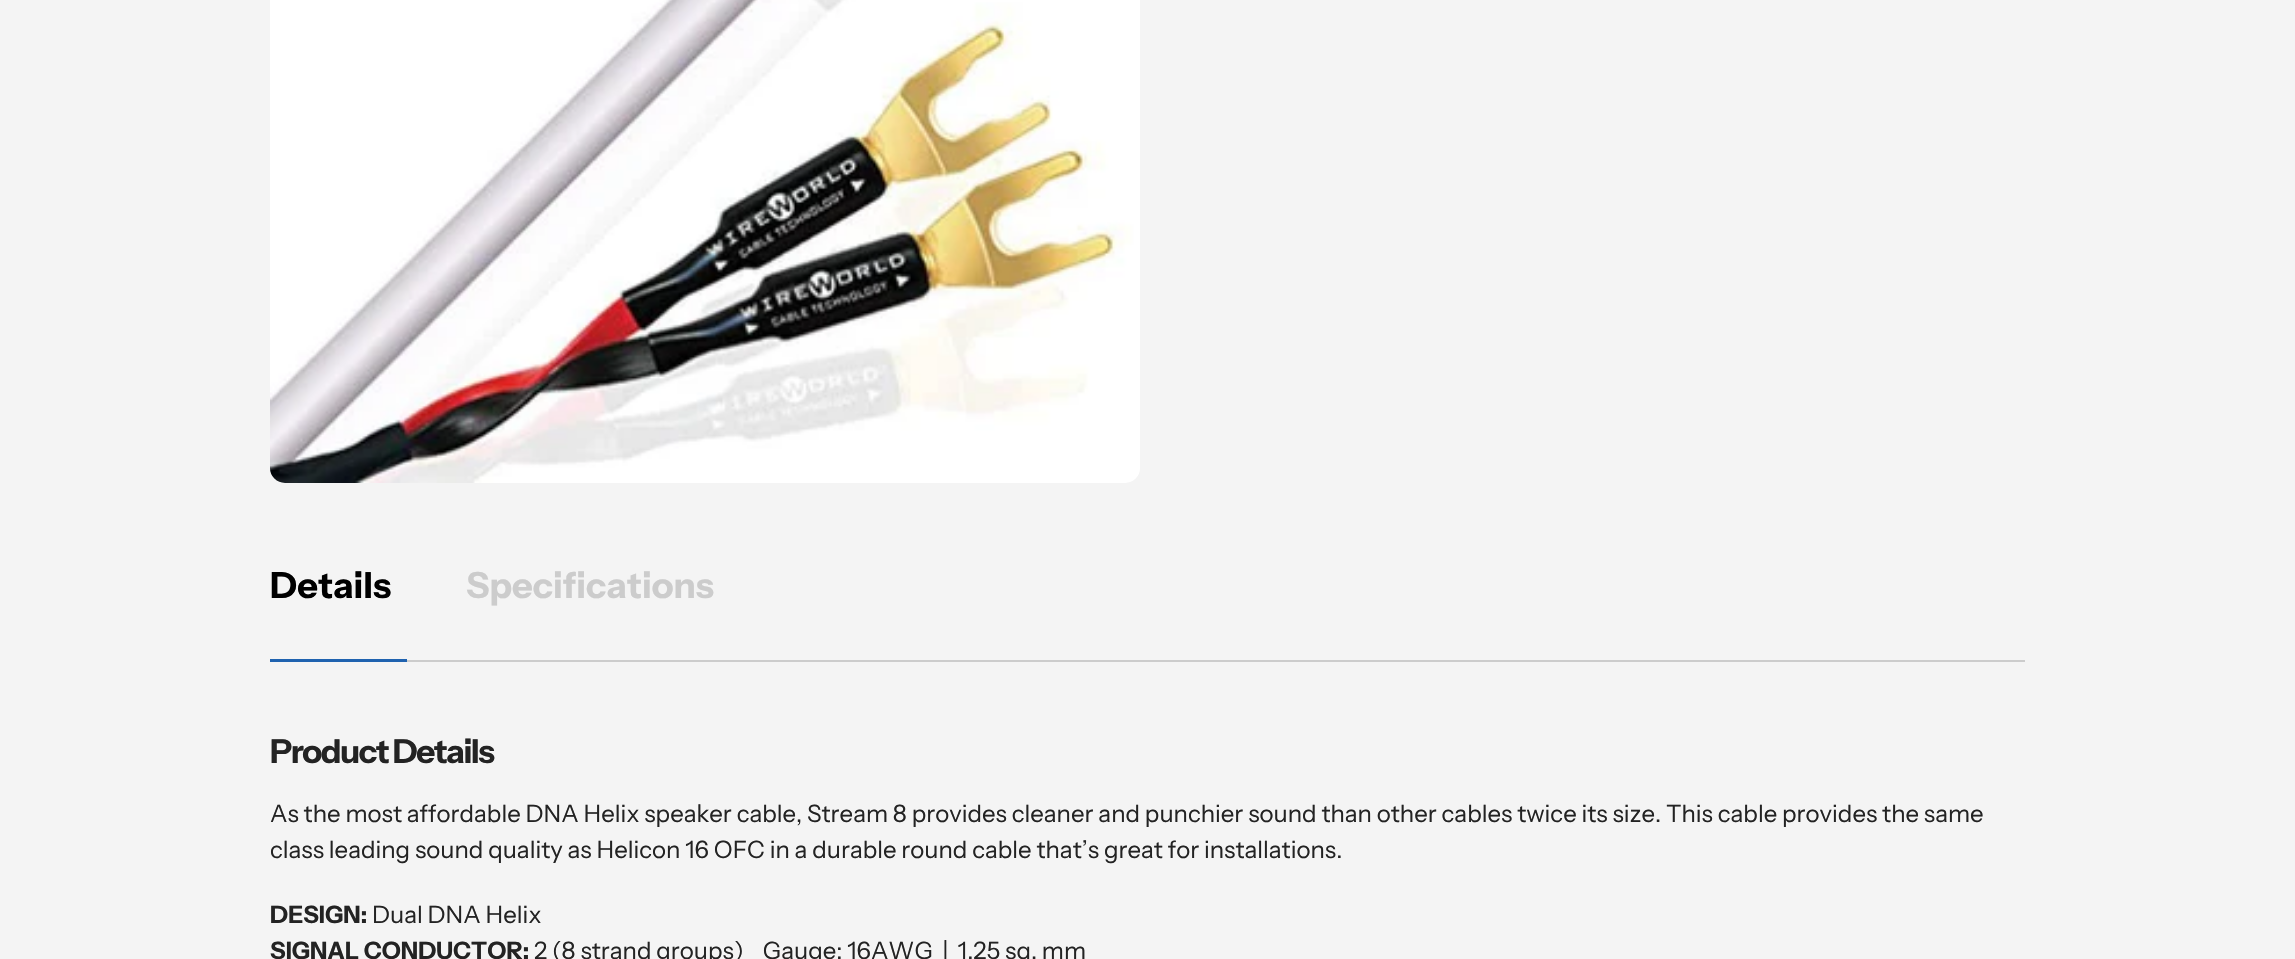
void draw(SkCanvas* canvas) {
    SkPaint paint;
    paint.setAntiAlias(true);
    auto face = [&](const char* family, int weight, float size, bool italic = false) {
        SkFontStyle style(weight, SkFontStyle::kNormal_Width,
            italic ? SkFontStyle::kItalic_Slant : SkFontStyle::kUpright_Slant);
        SkFont result(fontMgr->matchFamilyStyle(family, style), size);
        result.setSubpixel(true);
        return result;
    };
    auto write = [&](const char* s, float x, float y, const SkFont& font, SkColor color) {
        SkPaint ink(SkColor4f::FromColor(color));
        ink.setAntiAlias(true);
        canvas->drawString(s, x, y, font, ink);
    };
    auto writeSpaced = [&](const char* s, float x, float y, const SkFont& font, const SkPaint& ink, float letter, float word) {
        std::vector<SkGlyphID> glyphs(font.countText(s, strlen(s), SkTextEncoding::kUTF8));
        std::vector<float> xs(glyphs.size());
        font.textToGlyphs(s, strlen(s), SkTextEncoding::kUTF8, glyphs);
        font.getXPos(glyphs, xs, x);
        float extra = 0;
        for (size_t i = 0; i < glyphs.size(); i++) {
            xs[i] += extra;
            extra += letter + word * (glyphs[i] == font.unicharToGlyph(' '));
        }
        canvas->drawTextBlob(SkTextBlob::MakeFromPosHGlyphs(glyphs, xs, y, font), 0, 0, ink);
    };
    auto block = [&](float x, float y, float w, float h, SkColor color) {
        SkPaint ink(SkColor4f::FromColor(color));
        ink.setAntiAlias(true);
        canvas->drawRect(SkRect::MakeXYWH(x, y, w, h), ink);
    };
    auto paste = [&](const char* path, float x, float y, float w, float h) {
        auto image = SkImages::DeferredFromEncodedData(SkData::MakeFromFileName(path));
        canvas->drawImageRect(image, SkRect::MakeXYWH(x, y, w, h), SkSamplingOptions());
    };
    canvas->clear(SkColorSetRGB(244, 244, 244));
    paste("pic1.png", 270, 0, 870, 483);
    block(407, 660, 1618, 2, SkColorSetRGB(204, 204, 204));
    block(270, 659, 137, 3, SkColorSetRGB(31, 98, 175));
    auto kFont1 = face("Instrument Sans", 700, 36);
    write("Details", 270, 598, kFont1, SK_ColorBLACK);
    write("Specifications", 466, 598, kFont1, SkColorSetRGB(204, 204, 204));
    auto kFont2 = face("Instrument Sans", 700, 33);
    paint.setColor(SkColorSetRGB(35, 35, 35));
    writeSpaced("Product Details", 270, 763, kFont2, paint, -1.5f, 0);
    auto kFont3 = face("Instrument Sans", 400, 24);
    write("As the most affordable DNA Helix speaker cable, Stream 8 provides cleaner and punchier sound than other cables twice its size. This cable provides the same", 270, 822, kFont3, SkColorSetRGB(35, 35, 35));
    write("class leading sound quality as Helicon 16 OFC in a durable round cable that’s great for installations.", 270, 858, kFont3, SkColorSetRGB(35, 35, 35));
    auto kFont4 = face("Instrument Sans", 700, 24);
    write("DESIGN:", 270, 923, kFont4, SkColorSetRGB(35, 35, 35));
    write("Dual DNA Helix", 372, 923, kFont3, SkColorSetRGB(35, 35, 35));
    write("SIGNAL CONDUCTOR:", 270, 959, kFont4, SkColorSetRGB(35, 35, 35));
    write("2 (8 strand groups)    Gauge: 16AWG  |  1.25 sq. mm", 534, 959, kFont3, SkColorSetRGB(35, 35, 35));
}
